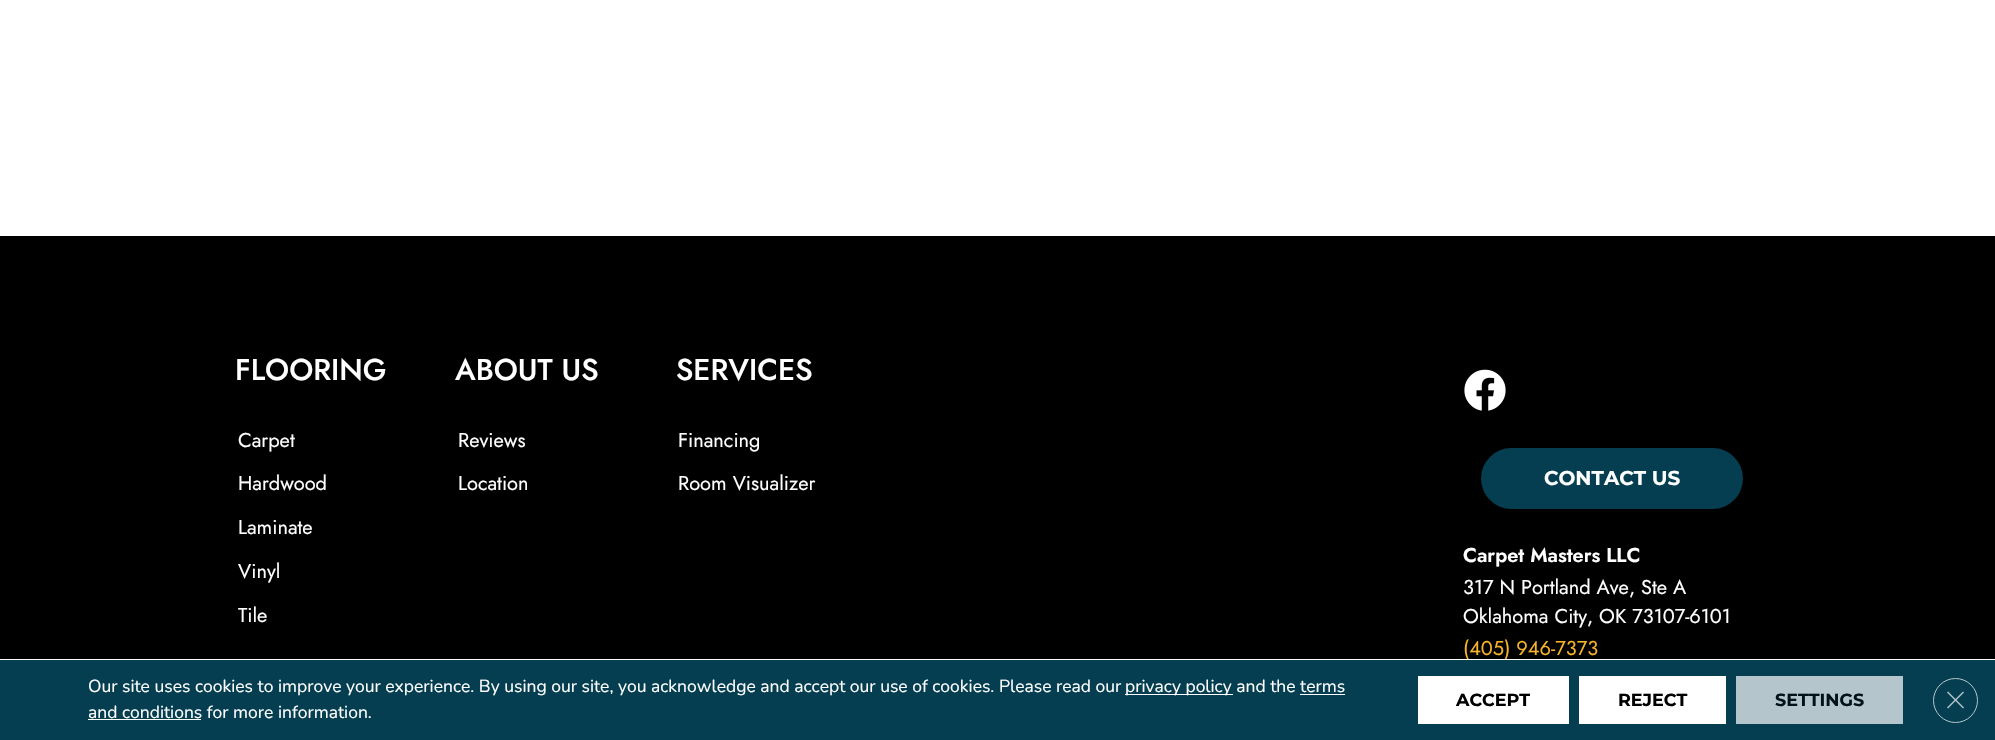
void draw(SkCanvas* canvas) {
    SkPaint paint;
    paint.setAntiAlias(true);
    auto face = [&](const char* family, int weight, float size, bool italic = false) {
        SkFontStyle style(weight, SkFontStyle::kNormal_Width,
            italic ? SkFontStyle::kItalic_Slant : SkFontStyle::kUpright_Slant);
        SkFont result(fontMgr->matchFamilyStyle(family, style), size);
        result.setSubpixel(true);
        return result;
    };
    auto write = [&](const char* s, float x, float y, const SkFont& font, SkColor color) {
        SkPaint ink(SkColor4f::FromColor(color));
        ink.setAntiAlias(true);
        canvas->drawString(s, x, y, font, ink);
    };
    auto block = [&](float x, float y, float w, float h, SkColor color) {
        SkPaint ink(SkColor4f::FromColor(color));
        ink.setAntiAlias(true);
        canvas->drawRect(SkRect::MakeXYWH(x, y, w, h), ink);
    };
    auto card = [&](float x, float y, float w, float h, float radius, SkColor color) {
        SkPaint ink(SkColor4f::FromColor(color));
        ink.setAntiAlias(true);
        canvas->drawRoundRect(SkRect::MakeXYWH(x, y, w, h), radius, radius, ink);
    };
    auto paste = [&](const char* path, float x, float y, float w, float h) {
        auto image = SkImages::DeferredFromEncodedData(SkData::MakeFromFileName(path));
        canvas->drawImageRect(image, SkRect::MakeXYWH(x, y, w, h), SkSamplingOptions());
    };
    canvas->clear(SK_ColorWHITE);
    block(0, 236, 1995, 423, SK_ColorBLACK);
    auto kFont1 = face("Jost", 500, 30);
    write("FLOORING", 235, 380, kFont1, SK_ColorWHITE);
    auto kFont2 = face("Jost", 400, 20);
    write("Carpet", 238, 447, kFont2, SK_ColorWHITE);
    write("Hardwood", 238, 490, kFont2, SK_ColorWHITE);
    write("Laminate", 238, 534, kFont2, SK_ColorWHITE);
    write("Vinyl", 238, 578, kFont2, SK_ColorWHITE);
    write("Tile", 238, 622, kFont2, SK_ColorWHITE);
    write("ABOUT US", 455, 380, kFont1, SK_ColorWHITE);
    write("Reviews", 458, 447, kFont2, SK_ColorWHITE);
    write("Location", 458, 490, kFont2, SK_ColorWHITE);
    write("SERVICES", 676, 380, kFont1, SK_ColorWHITE);
    write("Financing", 678, 447, kFont2, SK_ColorWHITE);
    write("Room Visualizer", 678, 490, kFont2, SK_ColorWHITE);
    paste("pic1.png", 1464, 369, 42, 42);
    card(1481, 448, 262, 61, 30.5f, SkColorSetRGB(4, 62, 80));
    auto kFont3 = face("Montserrat", 100, 20);
    write("CONTACT US", 1544, 485, kFont3, SK_ColorWHITE);
    auto kFont4 = face("Jost", 600, 20);
    write("Carpet Masters LLC", 1463, 562, kFont4, SK_ColorWHITE);
    write("317 N Portland Ave, Ste A", 1463, 594, kFont2, SK_ColorWHITE);
    write("Oklahoma City, OK 73107-6101", 1463, 623, kFont2, SK_ColorWHITE);
    write("(405) 946-7373", 1463, 655, kFont2, SkColorSetRGB(246, 180, 42));
    block(0, 660, 1995, 80, SkColorSetRGB(4, 62, 80));
    auto kFont5 = face("Nunito", 400, 17.5f);
    write("Our site uses cookies to improve your experience. By using our site, you acknowledge and accept our use of cookies. Please read our", 88, 692, kFont5, SK_ColorWHITE);
    block(1125, 694, 108, 1, SK_ColorWHITE);
    write("privacy policy and the terms", 1125, 692, kFont5, SK_ColorWHITE);
    block(1300, 694, 45, 1, SK_ColorWHITE);
    write("and conditions for more information.", 88, 718, kFont5, SK_ColorWHITE);
    block(88, 719, 113, 1, SK_ColorWHITE);
    block(1418, 676, 151, 48, SK_ColorWHITE);
    auto kFont6 = face("Montserrat", 100, 17.5f);
    write("ACCEPT", 1456, 706, kFont6, SK_ColorBLACK);
    block(1579, 676, 147, 48, SK_ColorWHITE);
    write("REJECT", 1618, 706, kFont6, SK_ColorBLACK);
    block(1736, 676, 167, 48, SkColorSetRGB(180, 197, 203));
    write("SETTINGS", 1775, 706, kFont6, SkColorSetRGB(1, 19, 24));
    paint.setStyle(SkPaint::kStroke_Style);
    paint.setStrokeWidth(1);
    paint.setColor(SkColorSetRGB(180, 197, 203));
    canvas->drawCircle(1955.5f, 700.5f, 22, paint);
    paint.setStyle(SkPaint::kFill_Style);
    canvas->drawPath(SkPathBuilder().moveTo(1963, 691.5f).lineTo(1964, 692.5f).lineTo(1948, 708.5f).lineTo(1947, 707.5f).close().detach(), paint);
    canvas->drawPath(SkPathBuilder().moveTo(1947, 692.5f).lineTo(1948, 691.5f).lineTo(1964, 707.5f).lineTo(1963, 708.5f).close().detach(), paint);
}
